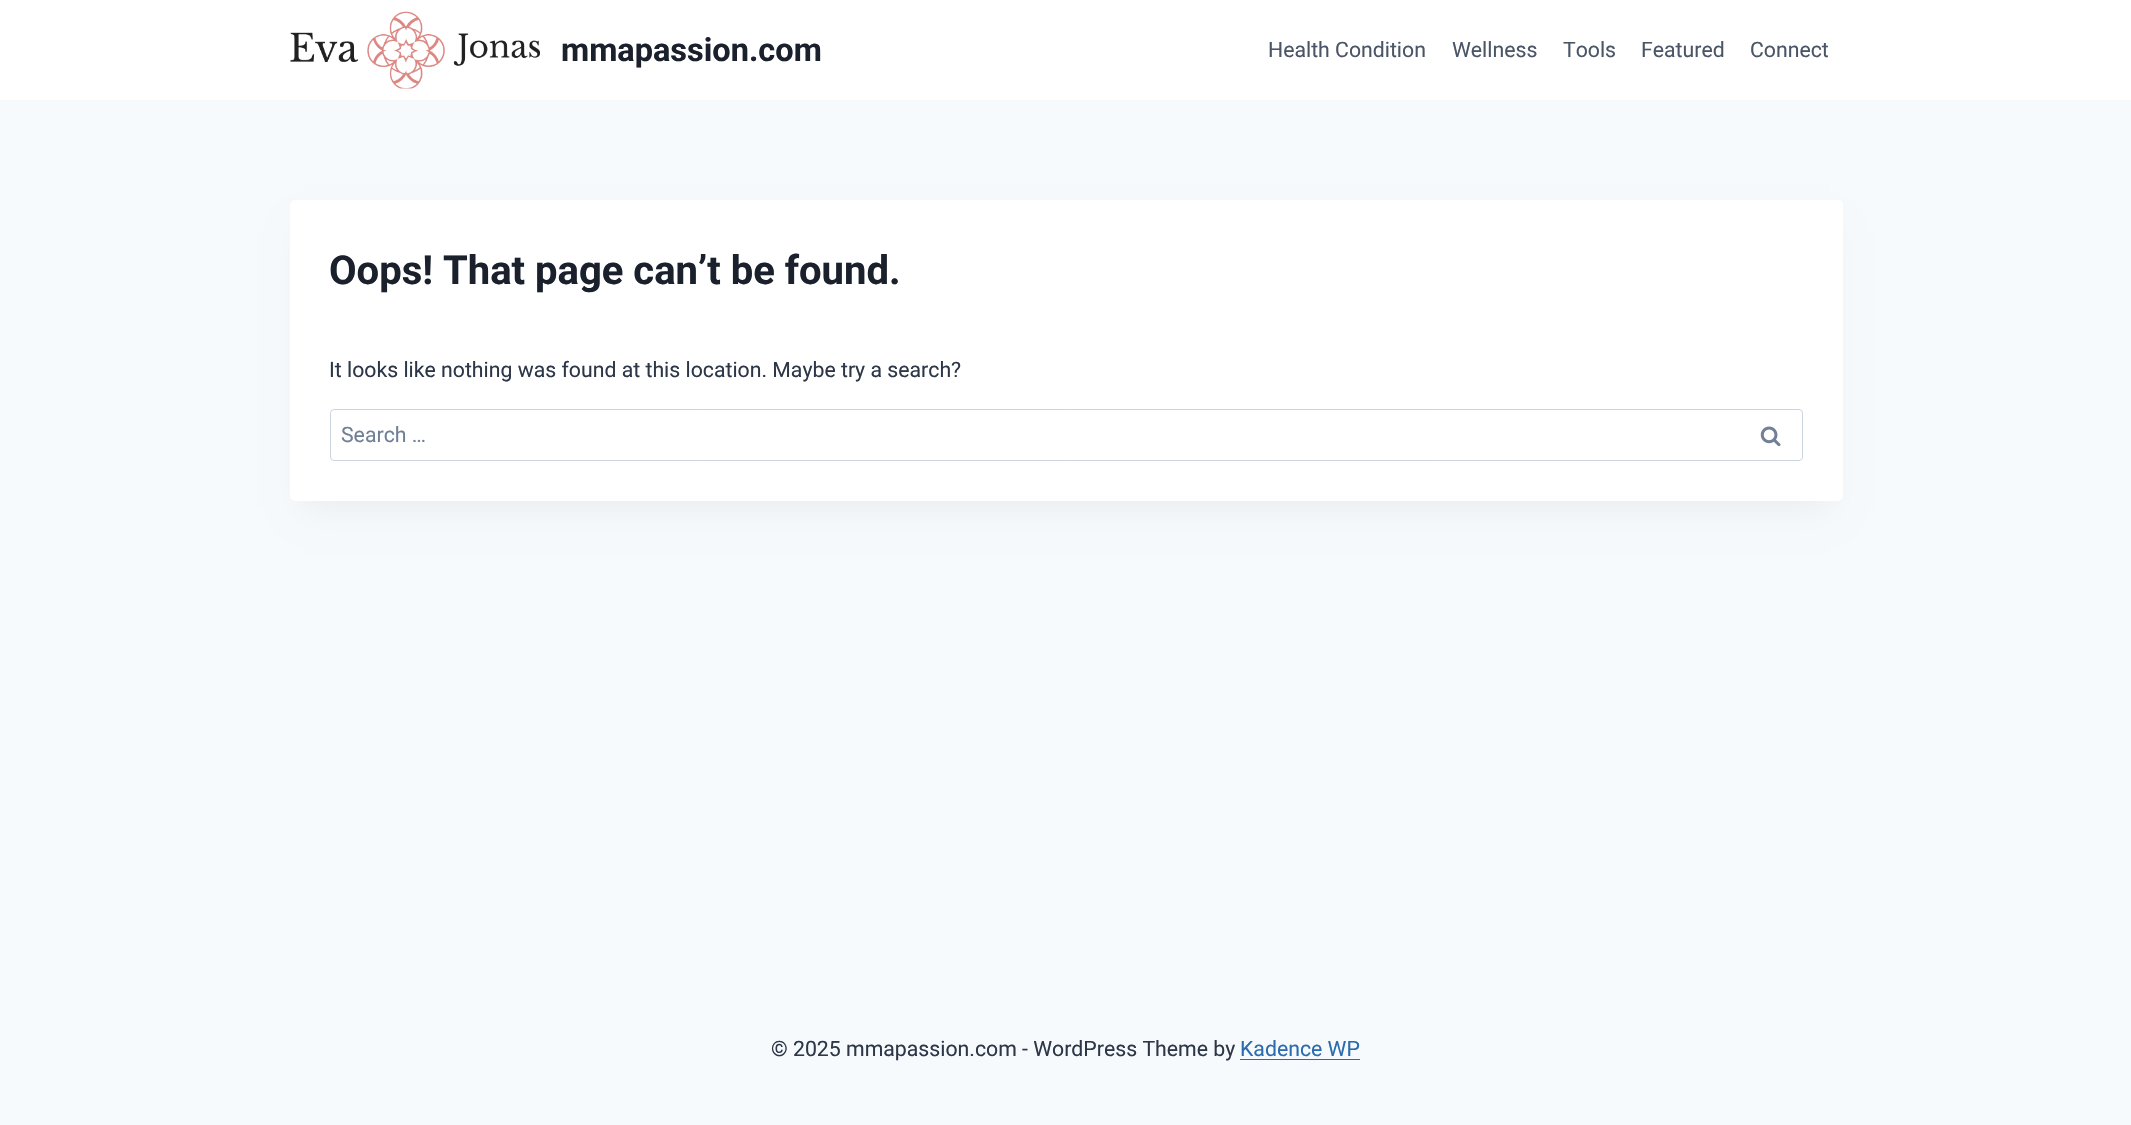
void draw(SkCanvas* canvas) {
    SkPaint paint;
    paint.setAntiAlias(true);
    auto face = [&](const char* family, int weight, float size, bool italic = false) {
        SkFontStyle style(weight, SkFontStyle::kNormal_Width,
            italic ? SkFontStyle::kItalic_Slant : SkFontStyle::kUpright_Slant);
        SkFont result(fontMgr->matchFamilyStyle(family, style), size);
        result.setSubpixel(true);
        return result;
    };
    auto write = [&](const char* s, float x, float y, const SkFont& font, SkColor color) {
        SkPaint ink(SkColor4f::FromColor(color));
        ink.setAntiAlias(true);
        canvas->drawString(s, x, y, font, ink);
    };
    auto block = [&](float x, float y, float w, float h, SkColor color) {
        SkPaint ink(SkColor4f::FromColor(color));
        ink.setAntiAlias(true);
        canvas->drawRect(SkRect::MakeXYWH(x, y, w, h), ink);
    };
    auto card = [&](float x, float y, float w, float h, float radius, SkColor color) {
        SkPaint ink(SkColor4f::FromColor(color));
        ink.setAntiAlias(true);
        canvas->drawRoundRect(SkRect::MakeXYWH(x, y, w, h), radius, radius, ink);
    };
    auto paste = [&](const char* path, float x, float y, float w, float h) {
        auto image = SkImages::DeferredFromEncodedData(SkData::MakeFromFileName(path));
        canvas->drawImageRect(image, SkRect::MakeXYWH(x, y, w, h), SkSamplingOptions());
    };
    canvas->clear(SkColorSetRGB(247, 250, 252));
    block(0, 0, 2131, 100, SK_ColorWHITE);
    paste("pic1.png", 290, 11, 250, 78);
    auto kFont1 = face("Roboto", 700, 32.5f);
    write("mmapassion.com", 561, 61, kFont1, SkColorSetRGB(26, 32, 44));
    auto kFont2 = face("Roboto", 400, 21.25f);
    write("Health Condition", 1268, 57, kFont2, SkColorSetRGB(74, 85, 104));
    write("Wellness", 1452, 57, kFont2, SkColorSetRGB(74, 85, 104));
    write("Tools", 1563, 57, kFont2, SkColorSetRGB(74, 85, 104));
    write("Featured", 1641, 57, kFont2, SkColorSetRGB(74, 85, 104));
    write("Connect", 1750, 57, kFont2, SkColorSetRGB(74, 85, 104));
    paint.setColor(SkColorSetARGB(13, 0, 0, 0));
    paint.setMaskFilter(SkMaskFilter::MakeBlur(kNormal_SkBlurStyle, 15.5f));
    canvas->drawRect(SkRect::MakeXYWH(303, 231, 1527, 277), paint);
    paint.setMaskFilter(nullptr);
    card(290, 200, 1553, 301, 5, SK_ColorWHITE);
    auto kFont3 = face("Roboto", 700, 40);
    write("Oops! That page can’t be found.", 329, 284, kFont3, SkColorSetRGB(26, 32, 44));
    write("It looks like nothing was found at this location. Maybe try a search?", 329, 377, kFont2, SkColorSetRGB(45, 55, 72));
    paint.setStyle(SkPaint::kStroke_Style);
    paint.setStrokeWidth(1);
    paint.setColor(SkColorSetRGB(203, 213, 224));
    canvas->drawRoundRect(SkRect::MakeXYWH(330.5f, 409.5f, 1472, 51), 3.5f, 3.5f, paint);
    write("Search …", 341, 442, kFont2, SkColorSetRGB(113, 128, 150));
    paste("pic2.png", 1760, 426, 21, 20);
    write("© 2025 mmapassion.com - WordPress Theme by", 771, 1056, kFont2, SkColorSetRGB(45, 55, 72));
    write("Kadence WP", 1240, 1056, kFont2, SkColorSetRGB(43, 108, 176));
    block(1240, 1059, 120, 1, SkColorSetRGB(43, 108, 176));
}
